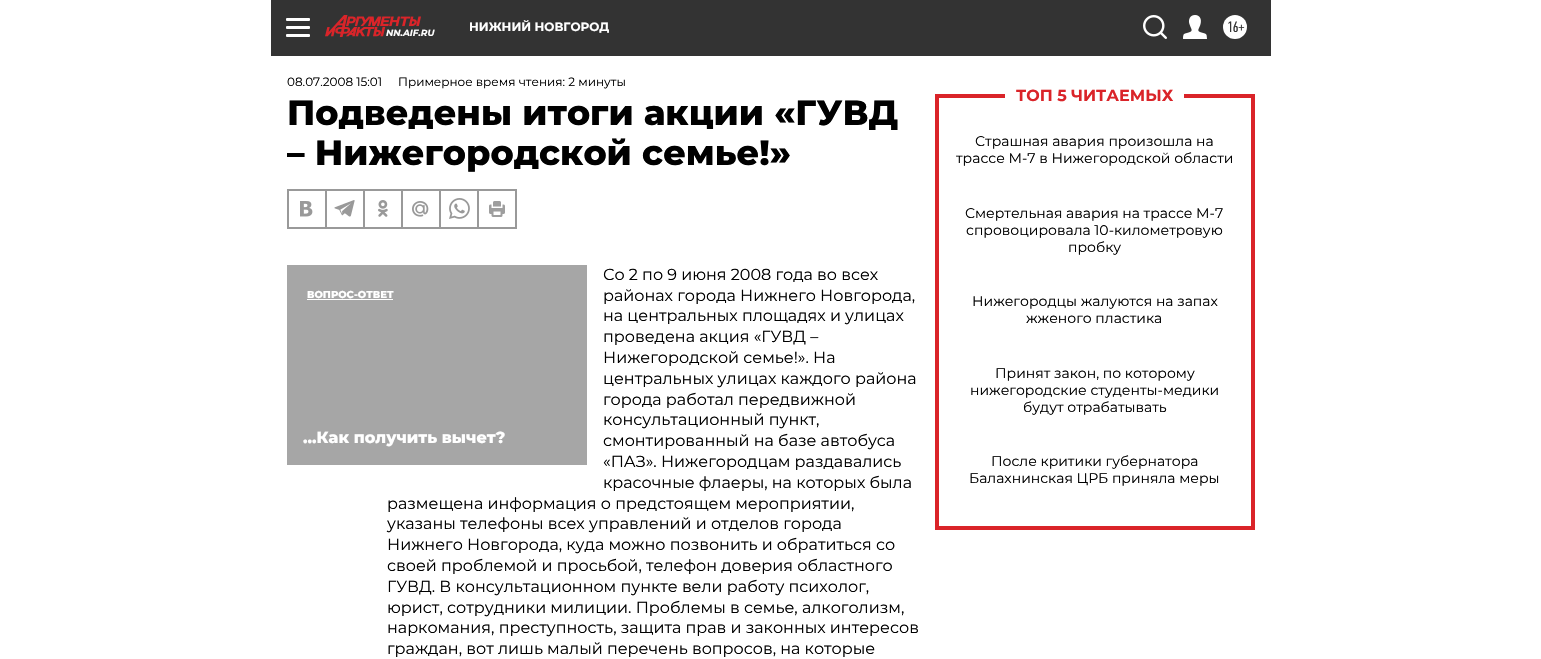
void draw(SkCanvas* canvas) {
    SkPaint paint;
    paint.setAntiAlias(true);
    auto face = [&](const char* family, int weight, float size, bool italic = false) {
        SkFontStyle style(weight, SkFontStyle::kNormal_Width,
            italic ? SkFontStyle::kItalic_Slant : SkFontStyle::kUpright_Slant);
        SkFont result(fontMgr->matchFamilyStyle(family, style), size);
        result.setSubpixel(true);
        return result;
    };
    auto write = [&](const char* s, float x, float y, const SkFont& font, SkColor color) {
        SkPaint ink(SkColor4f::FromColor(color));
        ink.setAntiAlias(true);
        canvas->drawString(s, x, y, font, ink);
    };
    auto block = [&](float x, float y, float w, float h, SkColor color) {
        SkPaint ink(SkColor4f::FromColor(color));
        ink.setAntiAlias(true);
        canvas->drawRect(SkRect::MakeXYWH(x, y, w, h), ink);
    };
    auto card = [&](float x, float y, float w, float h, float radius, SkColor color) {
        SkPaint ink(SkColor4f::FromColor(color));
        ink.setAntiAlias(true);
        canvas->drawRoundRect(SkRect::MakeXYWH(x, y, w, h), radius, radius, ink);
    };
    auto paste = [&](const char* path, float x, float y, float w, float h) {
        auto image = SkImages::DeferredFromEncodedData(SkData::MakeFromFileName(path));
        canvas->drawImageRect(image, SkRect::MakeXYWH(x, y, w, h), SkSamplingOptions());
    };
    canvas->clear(SK_ColorWHITE);
    block(271, 0, 1000, 56, SkColorSetRGB(51, 51, 51));
    card(286, 18, 24, 3, 1, SK_ColorWHITE);
    card(286, 26, 24, 3, 1, SK_ColorWHITE);
    card(286, 34, 24, 3, 1, SK_ColorWHITE);
    paste("pic1.png", 325, 15, 96, 22);
    auto kFont1 = face("Montserrat", 700, 9, true);
    write("NN.AIF.RU", 386, 36, kFont1, SK_ColorWHITE);
    auto kFont2 = face("Montserrat", 700, 12);
    write("НИЖНИЙ НОВГОРОД", 469, 31, kFont2, SK_ColorWHITE);
    paste("pic2.png", 1143, 15, 24, 24);
    paste("pic3.png", 1183, 15, 24, 24);
    paint.setColor(SK_ColorWHITE);
    canvas->drawCircle(1235, 27, 12, paint);
    auto kFont3 = face("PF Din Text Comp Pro", 400, 15);
    write("16+", 1227, 32, kFont3, SkColorSetRGB(51, 51, 51));
    auto kFont4 = face("Montserrat", 400, 12);
    write("08.07.2008 15:01", 287, 86, kFont4, SK_ColorBLACK);
    write("Примерное время чтения: 2 минуты", 398, 86, kFont4, SK_ColorBLACK);
    auto kFont5 = face("Montserrat", 800, 35);
    write("Подведены итоги акции «ГУВД", 287, 125, kFont5, SK_ColorBLACK);
    write("– Нижегородской семье!»", 287, 165, kFont5, SK_ColorBLACK);
    paint.setStyle(SkPaint::kStroke_Style);
    paint.setStrokeWidth(1);
    paint.setColor(SkColorSetRGB(153, 153, 153));
    canvas->drawRect(SkRect::MakeXYWH(287.5f, 189.5f, 229, 39), paint);
    canvas->drawRect(SkRect::MakeXYWH(288.5f, 190.5f, 37, 37), paint);
    paste("pic4.png", 300, 201, 13, 16);
    canvas->drawRect(SkRect::MakeXYWH(326.5f, 190.5f, 37, 37), paint);
    paste("pic5.png", 334, 200, 21, 17);
    canvas->drawRect(SkRect::MakeXYWH(364.5f, 190.5f, 37, 37), paint);
    paste("pic6.png", 378, 200, 10, 17);
    canvas->drawRect(SkRect::MakeXYWH(402.5f, 190.5f, 37, 37), paint);
    paste("pic7.png", 412, 201, 17, 16);
    canvas->drawRect(SkRect::MakeXYWH(440.5f, 190.5f, 37, 37), paint);
    paste("pic8.png", 449, 198, 21, 21);
    canvas->drawRect(SkRect::MakeXYWH(478.5f, 190.5f, 37, 37), paint);
    paste("pic9.png", 489, 201, 16, 16);
    auto kFont6 = face("Montserrat", 400, 16);
    write("Со 2 по 9 июня 2008 года во всех", 603, 280, kFont6, SK_ColorBLACK);
    write("районах города Нижнего Новгорода,", 603, 301, kFont6, SK_ColorBLACK);
    write("на центральных площадях и улицах", 603, 321, kFont6, SK_ColorBLACK);
    write("проведена акция «ГУВД –", 603, 342, kFont6, SK_ColorBLACK);
    write("Нижегородской семье!». На", 603, 363, kFont6, SK_ColorBLACK);
    write("центральных улицах каждого района", 603, 384, kFont6, SK_ColorBLACK);
    write("города работал передвижной", 603, 405, kFont6, SK_ColorBLACK);
    write("консультационный пункт,", 603, 425, kFont6, SK_ColorBLACK);
    write("смонтированный на базе автобуса", 603, 446, kFont6, SK_ColorBLACK);
    write("«ПАЗ». Нижегородцам раздавались", 603, 467, kFont6, SK_ColorBLACK);
    write("красочные флаеры, на которых была", 603, 488, kFont6, SK_ColorBLACK);
    write("размещена информация о предстоящем мероприятии,", 387, 509, kFont6, SK_ColorBLACK);
    write("указаны телефоны всех управлений и отделов города", 387, 529, kFont6, SK_ColorBLACK);
    write("Нижнего Новгорода, куда можно позвонить и обратиться со", 387, 550, kFont6, SK_ColorBLACK);
    write("своей проблемой и просьбой, телефон доверия областного", 387, 571, kFont6, SK_ColorBLACK);
    write("ГУВД. В консультационном пункте вели работу психолог,", 387, 592, kFont6, SK_ColorBLACK);
    write("юрист, сотрудники милиции. Проблемы в семье, алкоголизм,", 387, 613, kFont6, SK_ColorBLACK);
    write("наркомания, преступность, защита прав и законных интересов", 387, 633, kFont6, SK_ColorBLACK);
    write("граждан, вот лишь малый перечень вопросов, на которые", 387, 654, kFont6, SK_ColorBLACK);
    block(287, 265, 300, 200, SkColorSetRGB(166, 166, 166));
    auto kFont7 = face("Montserrat", 800, 10);
    write("ВОПРОС-ОТВЕТ", 307, 298, kFont7, SK_ColorWHITE);
    block(307, 299, 86, 1, SK_ColorWHITE);
    auto kFont8 = face("Montserrat", 800, 16);
    write("...Как получить вычет?", 303, 443, kFont8, SK_ColorWHITE);
    block(1251, 94, 4, 436, SkColorSetRGB(218, 36, 41));
    block(935, 526, 320, 4, SkColorSetRGB(218, 36, 41));
    block(935, 94, 4, 436, SkColorSetRGB(218, 36, 41));
    block(935, 94, 70, 4, SkColorSetRGB(218, 36, 41));
    auto kFont9 = face("Montserrat", 700, 16);
    write("ТОП 5 ЧИТАЕМЫХ", 1016, 101, kFont9, SkColorSetRGB(218, 36, 41));
    block(1184, 94, 71, 4, SkColorSetRGB(218, 36, 41));
    auto kFont10 = face("Montserrat", 400, 14);
    write("Страшная авария произошла на", 975, 146, kFont10, SK_ColorBLACK);
    write("трассе М-7 в Нижегородской области", 956, 163, kFont10, SK_ColorBLACK);
    write("Смертельная авария на трассе М-7", 965, 218, kFont10, SK_ColorBLACK);
    write("спровоцировала 10-километровую", 966, 235, kFont10, SK_ColorBLACK);
    write("пробку", 1068, 252, kFont10, SK_ColorBLACK);
    write("Нижегородцы жалуются на запах", 972, 306, kFont10, SK_ColorBLACK);
    write("жженого пластика", 1026, 323, kFont10, SK_ColorBLACK);
    write("Принят закон, по которому", 995, 378, kFont10, SK_ColorBLACK);
    write("нижегородские студенты-медики", 970, 395, kFont10, SK_ColorBLACK);
    write("будут отрабатывать", 1023, 412, kFont10, SK_ColorBLACK);
    write("После критики губернатора", 991, 466, kFont10, SK_ColorBLACK);
    write("Балахнинская ЦРБ приняла меры", 969, 483, kFont10, SK_ColorBLACK);
}
